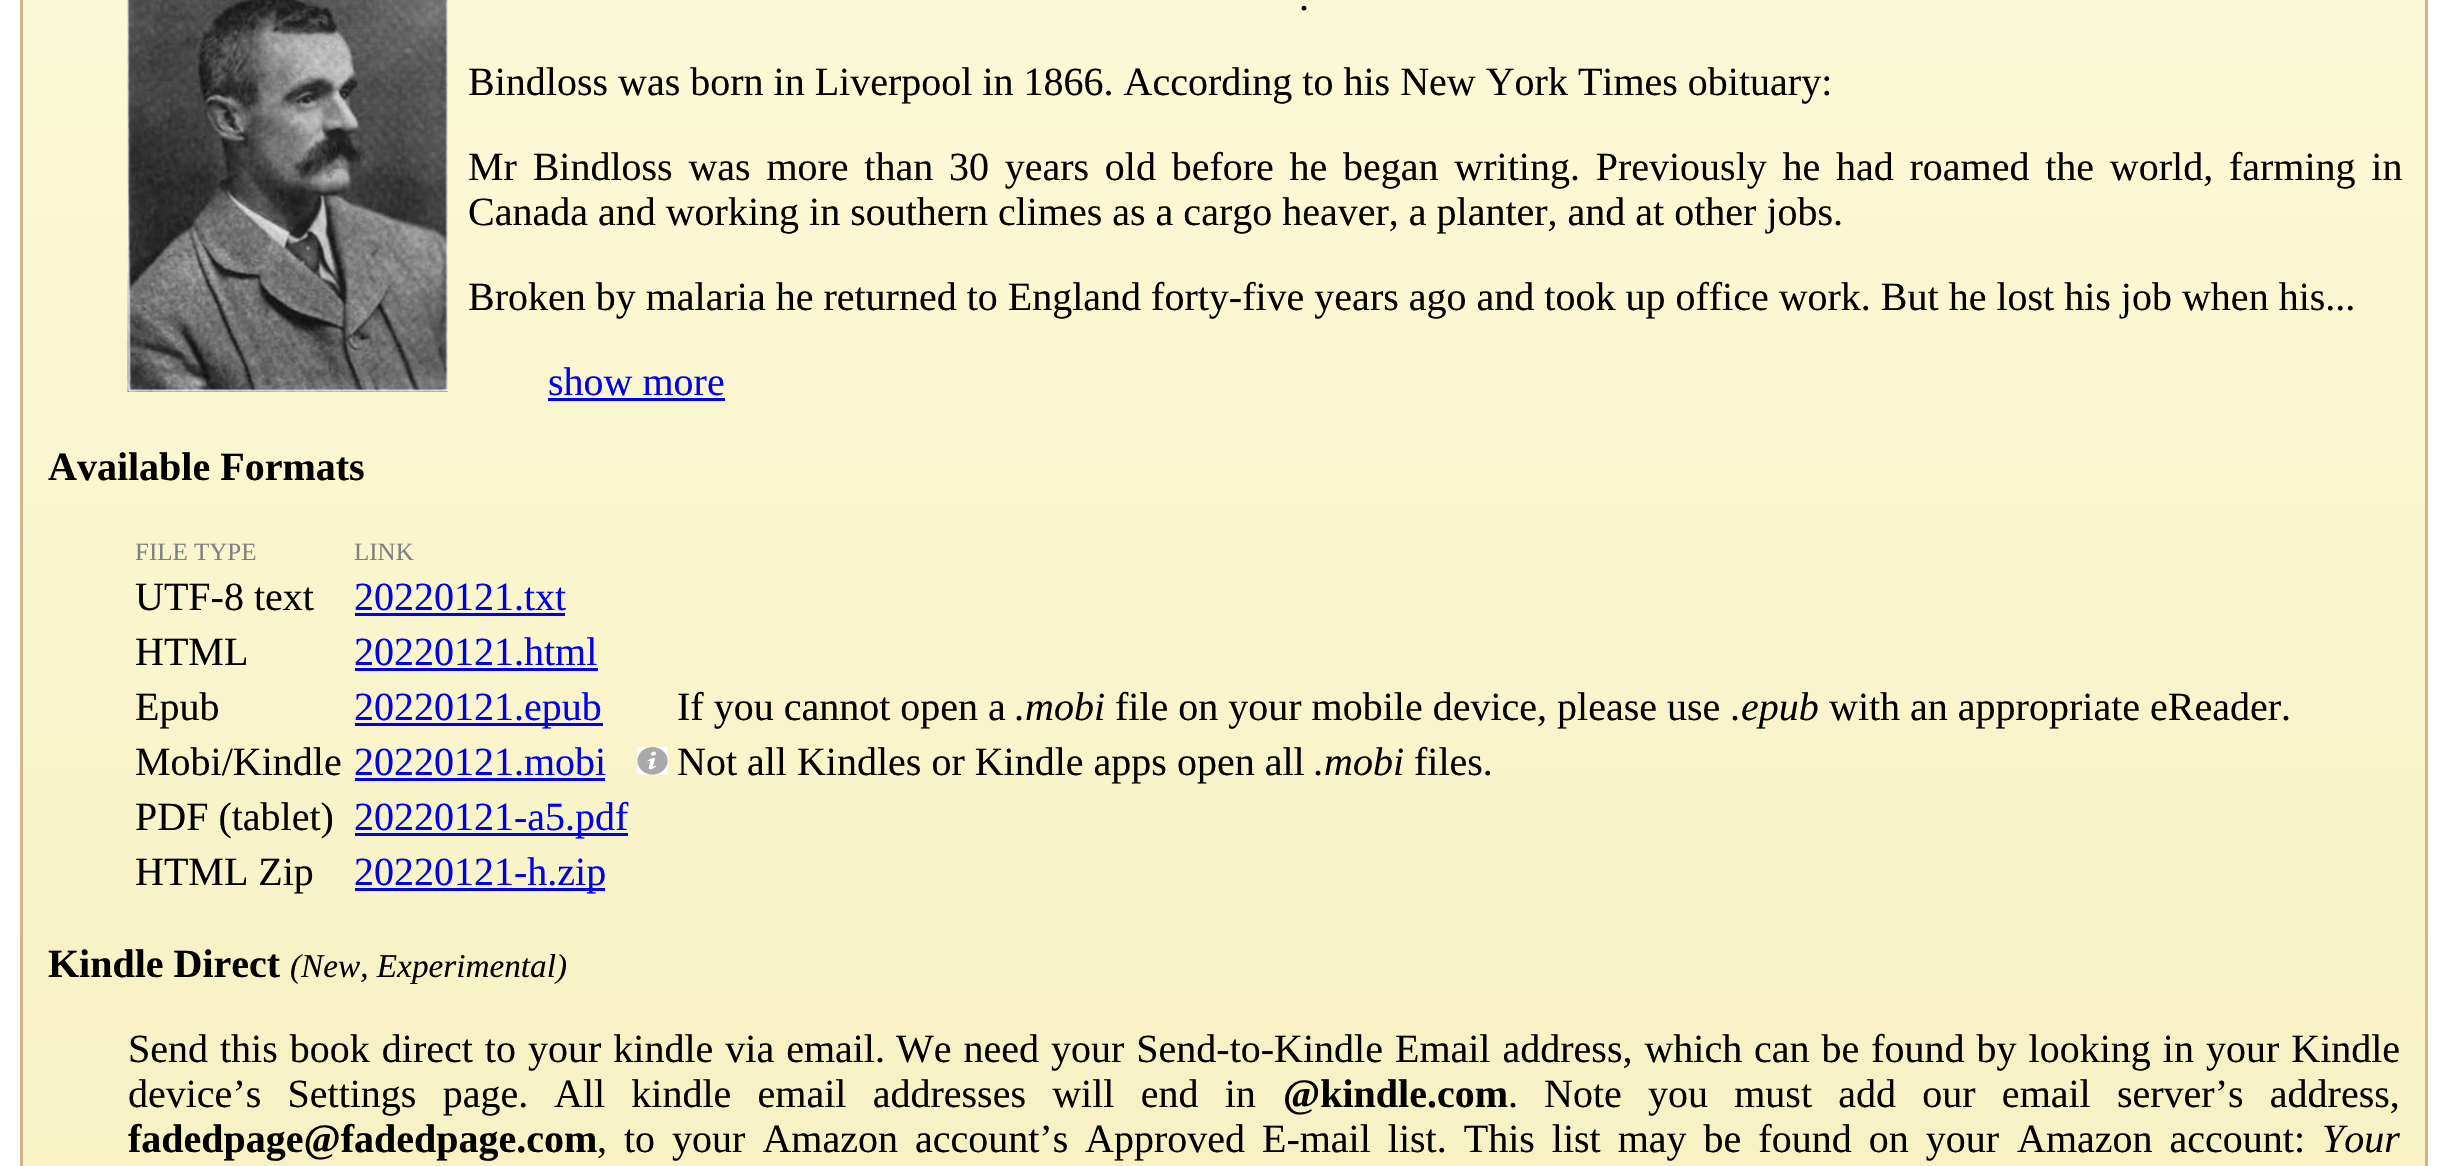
void draw(SkCanvas* canvas) {
    SkPaint paint;
    paint.setAntiAlias(true);
    auto face = [&](const char* family, int weight, float size, bool italic = false) {
        SkFontStyle style(weight, SkFontStyle::kNormal_Width,
            italic ? SkFontStyle::kItalic_Slant : SkFontStyle::kUpright_Slant);
        SkFont result(fontMgr->matchFamilyStyle(family, style), size);
        result.setSubpixel(true);
        return result;
    };
    auto write = [&](const char* s, float x, float y, const SkFont& font, SkColor color) {
        SkPaint ink(SkColor4f::FromColor(color));
        ink.setAntiAlias(true);
        canvas->drawString(s, x, y, font, ink);
    };
    auto writeSpaced = [&](const char* s, float x, float y, const SkFont& font, const SkPaint& ink, float letter, float word) {
        std::vector<SkGlyphID> glyphs(font.countText(s, strlen(s), SkTextEncoding::kUTF8));
        std::vector<float> xs(glyphs.size());
        font.textToGlyphs(s, strlen(s), SkTextEncoding::kUTF8, glyphs);
        font.getXPos(glyphs, xs, x);
        float extra = 0;
        for (size_t i = 0; i < glyphs.size(); i++) {
            xs[i] += extra;
            extra += letter + word * (glyphs[i] == font.unicharToGlyph(' '));
        }
        canvas->drawTextBlob(SkTextBlob::MakeFromPosHGlyphs(glyphs, xs, y, font), 0, 0, ink);
    };
    auto block = [&](float x, float y, float w, float h, SkColor color) {
        SkPaint ink(SkColor4f::FromColor(color));
        ink.setAntiAlias(true);
        canvas->drawRect(SkRect::MakeXYWH(x, y, w, h), ink);
    };
    auto paste = [&](const char* path, float x, float y, float w, float h) {
        auto image = SkImages::DeferredFromEncodedData(SkData::MakeFromFileName(path));
        canvas->drawImageRect(image, SkRect::MakeXYWH(x, y, w, h), SkSamplingOptions());
    };
    canvas->clear(SK_ColorWHITE);
    {
        const SkColor colors[] = {SkColorSetRGB(255, 255, 228), SkColorSetRGB(245, 238, 188)};
        const float stops[] = {0, 1};
        const SkPoint ends[] = {{1224, -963}, {1224, 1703}};
        paint.setShader(SkGradientShader::MakeLinear(ends, colors, stops, 2, SkTileMode::kClamp));
        paint.setAlpha(255);
    }
    canvas->drawRect(SkRect::MakeXYWH(23, 0, 2402, 1166), paint);
    block(2425, 0, 3, 1166, SkColorSetRGB(210, 180, 140));
    block(20, 0, 3, 1166, SkColorSetRGB(210, 180, 140));
    paste("pic1.png", 127, 0, 321, 392);
    auto kFont1 = face("Liberation Serif", 400, 40);
    write(".", 1299, 10, kFont1, SK_ColorBLACK);
    write("Bindloss was born in Liverpool in 1866. According to his New York Times obituary:", 468, 95, kFont1, SK_ColorBLACK);
    paint.setShader(nullptr);
    paint.setColor(SK_ColorBLACK);
    writeSpaced("Mr Bindloss was more than 30 years old before he began writing. Previously he had roamed the world, farming in", 468, 180, kFont1, paint, 0, 5.75f);
    write("Canada and working in southern climes as a cargo heaver, a planter, and at other jobs.", 468, 225, kFont1, SK_ColorBLACK);
    write("Broken by malaria he returned to England forty-five years ago and took up office work. But he lost his job when his...", 468, 310, kFont1, SK_ColorBLACK);
    write("show more", 548, 395, kFont1, SkColorSetRGB(0, 0, 238));
    block(548, 398, 177, 3, SkColorSetRGB(0, 0, 238));
    auto kFont2 = face("Liberation Serif", 700, 40);
    write("Available Formats", 48, 480, kFont2, SK_ColorBLACK);
    auto kFont3 = face("Liberation Serif", 400, 25);
    write("FILE TYPE", 135, 560, kFont3, SkColorSetRGB(128, 128, 128));
    write("LINK", 354, 560, kFont3, SkColorSetRGB(128, 128, 128));
    write("UTF-8 text", 135, 610, kFont1, SK_ColorBLACK);
    write("20220121.txt", 354, 610, kFont1, SkColorSetRGB(0, 0, 238));
    block(355, 613, 210, 3, SkColorSetRGB(0, 0, 238));
    write("HTML", 135, 665, kFont1, SK_ColorBLACK);
    write("20220121.html", 354, 665, kFont1, SkColorSetRGB(0, 0, 238));
    block(355, 668, 243, 3, SkColorSetRGB(0, 0, 238));
    write("Epub", 135, 720, kFont1, SK_ColorBLACK);
    block(355, 723, 248, 3, SkColorSetRGB(0, 0, 238));
    write("20220121.epub", 354, 720, kFont1, SkColorSetRGB(0, 0, 238));
    write("If you cannot open a", 677, 720, kFont1, SK_ColorBLACK);
    auto kFont4 = face("Liberation Serif", 400, 40, true);
    write(".mobi", 1015, 720, kFont4, SK_ColorBLACK);
    write("file on your mobile device, please use", 1115, 720, kFont1, SK_ColorBLACK);
    write(".epub", 1731, 720, kFont4, SK_ColorBLACK);
    write("with an appropriate eReader.", 1829, 720, kFont1, SK_ColorBLACK);
    write("Mobi/Kindle", 135, 775, kFont1, SK_ColorBLACK);
    write("20220121.mobi", 354, 775, kFont1, SkColorSetRGB(0, 0, 238));
    block(355, 778, 250, 3, SkColorSetRGB(0, 0, 238));
    paste("pic2.png", 637, 747, 31, 28);
    write("Not all Kindles or Kindle apps open all", 677, 775, kFont1, SK_ColorBLACK);
    write(".mobi", 1314, 775, kFont4, SK_ColorBLACK);
    write("files.", 1414, 775, kFont1, SK_ColorBLACK);
    write("PDF (tablet)", 135, 830, kFont1, SK_ColorBLACK);
    block(355, 833, 273, 3, SkColorSetRGB(0, 0, 238));
    write("20220121-a5.pdf", 354, 830, kFont1, SkColorSetRGB(0, 0, 238));
    write("HTML Zip", 135, 885, kFont1, SK_ColorBLACK);
    block(355, 888, 250, 3, SkColorSetRGB(0, 0, 238));
    write("20220121-h.zip", 354, 885, kFont1, SkColorSetRGB(0, 0, 238));
    write("Kindle Direct", 48, 977, kFont2, SK_ColorBLACK);
    auto kFont5 = face("Liberation Serif", 400, 33.25f, true);
    write("(New, Experimental)", 290, 977, kFont5, SK_ColorBLACK);
    writeSpaced("Send this book direct to your kindle via email.", 128, 1062, kFont1, paint, 0, 2);
    writeSpaced("We need your Send-to-Kindle Email address, which", 896, 1062, kFont1, paint, 0, 2);
    writeSpaced("can be found by looking in your Kindle", 1754, 1062, kFont1, paint, 0, 2);
    writeSpaced("device’s Settings page.", 128, 1107, kFont1, paint, 0, 16.25f);
    writeSpaced("All kindle email addresses will end in", 554, 1107, kFont1, paint, 0, 16.25f);
    write("@kindle.com", 1283, 1107, kFont2, SK_ColorBLACK);
    write(".", 1508, 1107, kFont1, SK_ColorBLACK);
    writeSpaced("Note you must add our email server’s address,", 1544, 1107, kFont1, paint, 0, 16.25f);
    write("fadedpage@fadedpage.com", 128, 1152, kFont2, SK_ColorBLACK);
    writeSpaced(", to your Amazon account’s", 597, 1152, kFont1, paint, 0, 7);
    writeSpaced("Approved E-mail list. This list may be found on your", 1085, 1152, kFont1, paint, 0, 7);
    writeSpaced("Amazon account:", 2017, 1152, kFont1, paint, 0, 7);
    write("Your", 2322, 1152, kFont4, SK_ColorBLACK);
}
